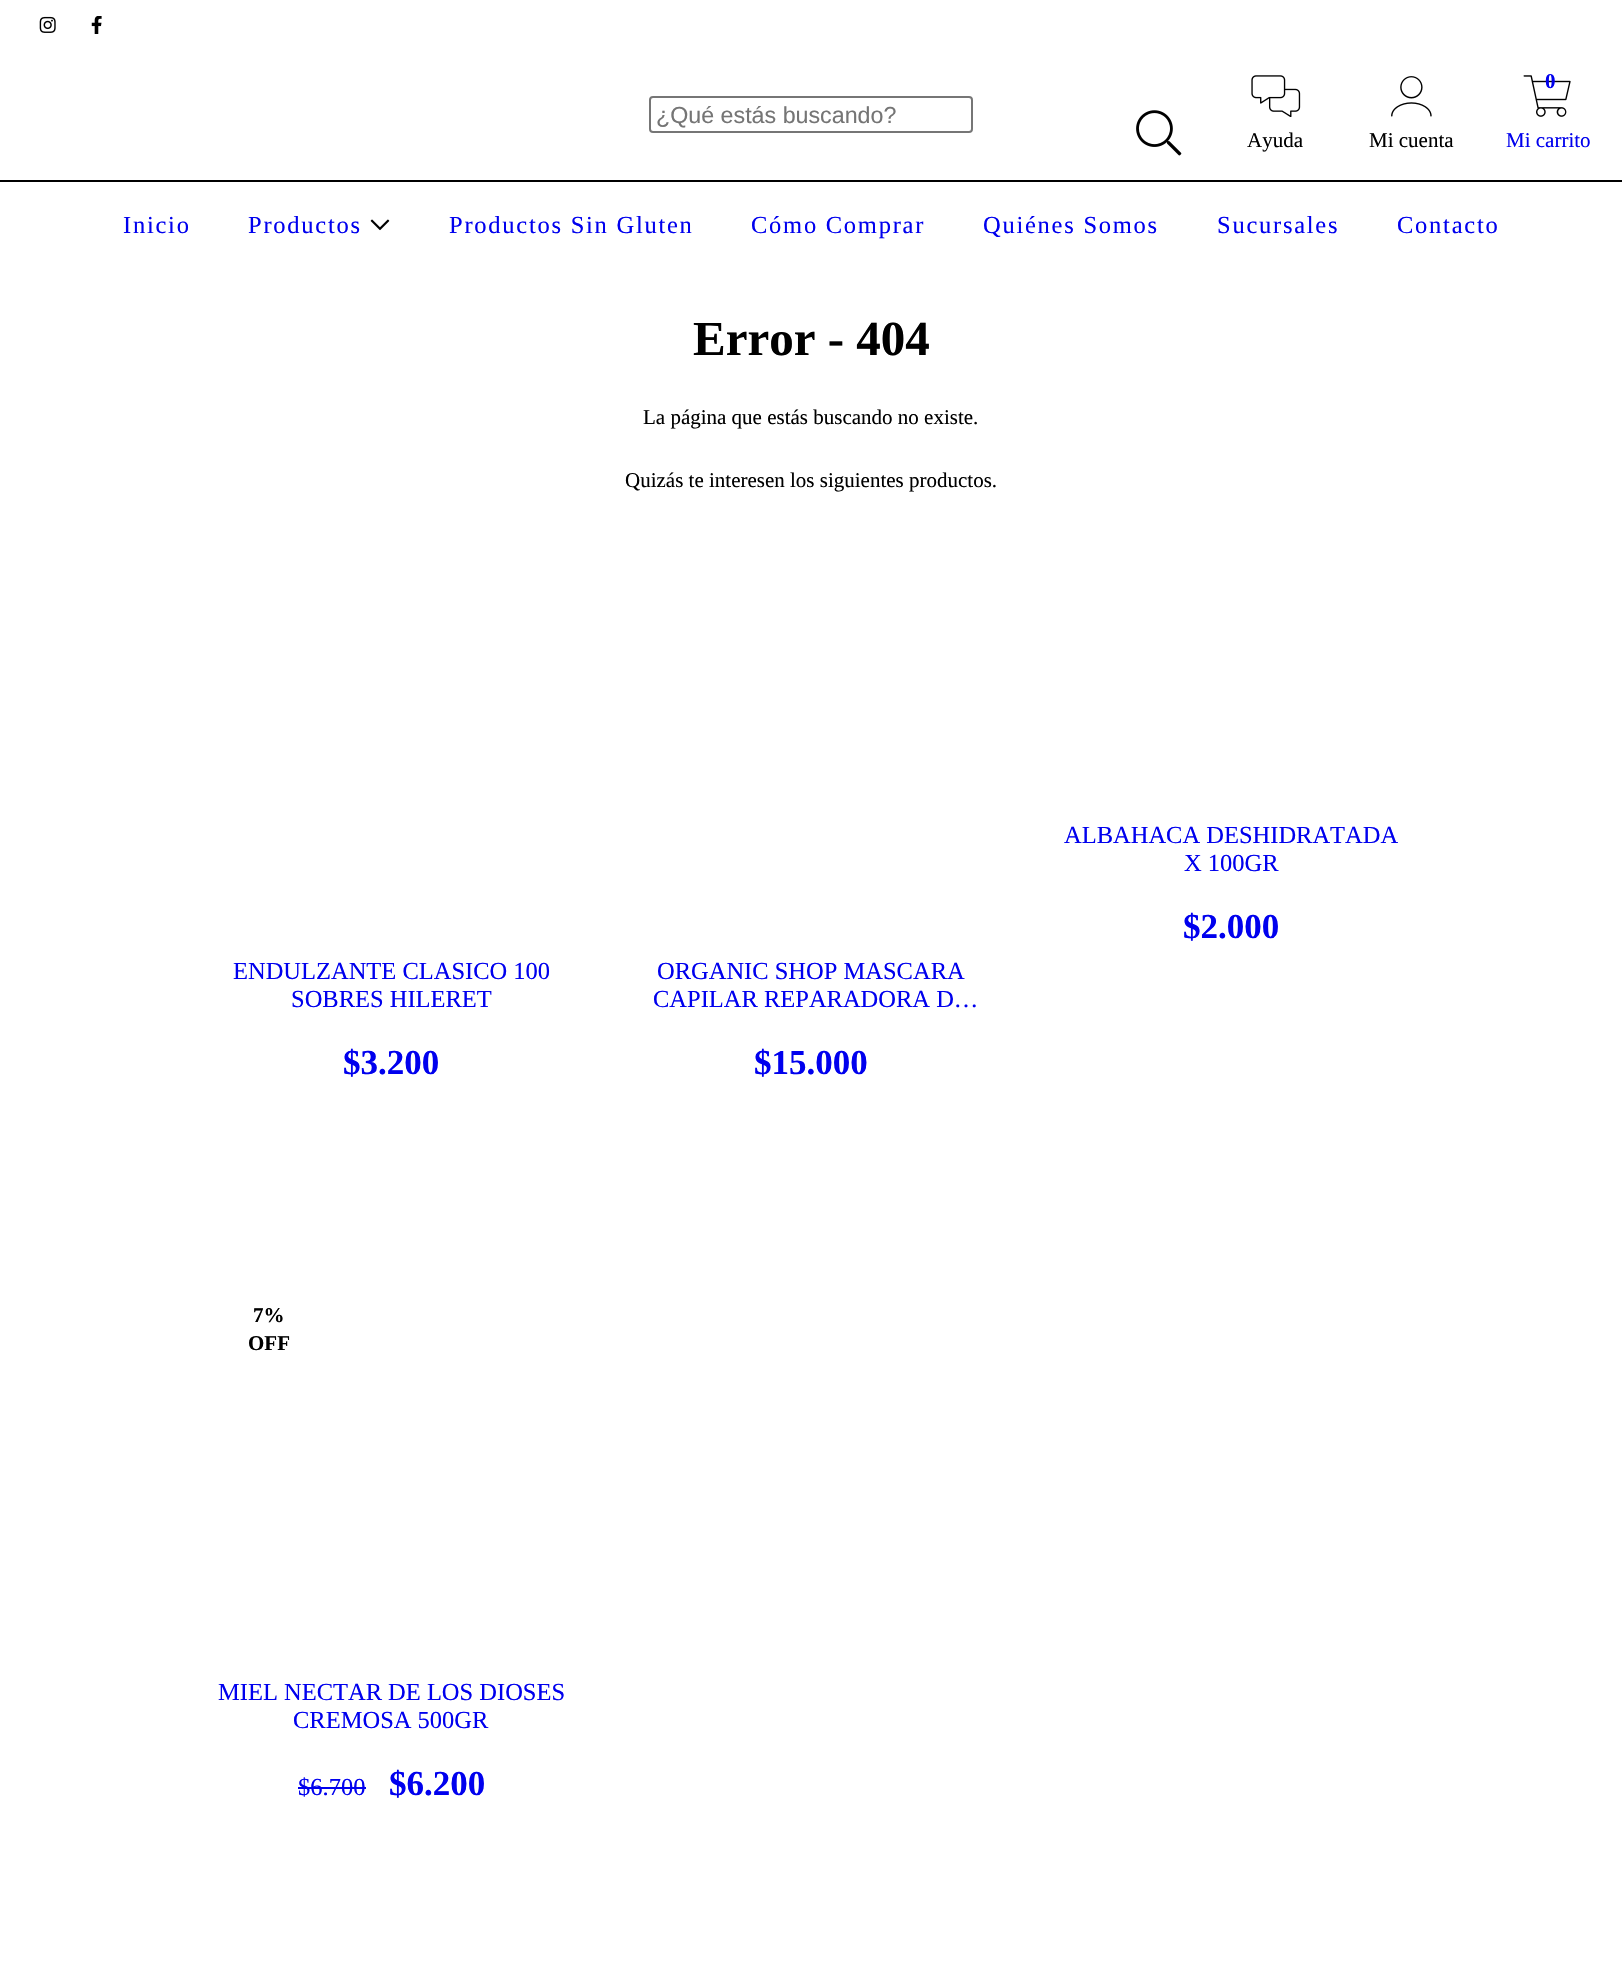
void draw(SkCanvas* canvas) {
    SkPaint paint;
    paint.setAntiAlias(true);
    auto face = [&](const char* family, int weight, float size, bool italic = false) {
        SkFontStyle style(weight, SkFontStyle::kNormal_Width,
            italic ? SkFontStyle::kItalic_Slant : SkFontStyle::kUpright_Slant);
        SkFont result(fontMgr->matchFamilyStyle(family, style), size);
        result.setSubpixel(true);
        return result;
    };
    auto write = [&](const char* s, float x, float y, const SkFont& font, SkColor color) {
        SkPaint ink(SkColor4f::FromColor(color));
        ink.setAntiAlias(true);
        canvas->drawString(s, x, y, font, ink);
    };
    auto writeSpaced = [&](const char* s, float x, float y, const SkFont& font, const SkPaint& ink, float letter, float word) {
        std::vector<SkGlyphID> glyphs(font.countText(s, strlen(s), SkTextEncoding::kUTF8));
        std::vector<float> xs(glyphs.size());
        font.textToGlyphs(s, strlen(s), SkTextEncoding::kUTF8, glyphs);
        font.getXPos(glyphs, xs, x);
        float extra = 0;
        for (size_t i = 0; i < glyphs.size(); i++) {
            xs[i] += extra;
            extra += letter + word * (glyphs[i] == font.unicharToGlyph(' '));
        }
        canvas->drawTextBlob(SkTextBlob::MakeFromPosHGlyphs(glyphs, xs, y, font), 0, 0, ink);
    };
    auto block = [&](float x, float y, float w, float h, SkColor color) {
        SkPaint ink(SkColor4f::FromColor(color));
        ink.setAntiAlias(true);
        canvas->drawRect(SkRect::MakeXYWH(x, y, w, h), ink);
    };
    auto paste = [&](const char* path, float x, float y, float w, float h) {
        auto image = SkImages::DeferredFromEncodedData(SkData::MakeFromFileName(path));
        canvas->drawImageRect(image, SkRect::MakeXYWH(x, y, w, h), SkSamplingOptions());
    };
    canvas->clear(SK_ColorWHITE);
    paste("pic1.png", 39, 16, 17, 17);
    paste("pic2.png", 91, 16, 11, 18);
    paint.setStyle(SkPaint::kStroke_Style);
    paint.setStrokeWidth(2);
    paint.setColor(SkColorSetRGB(118, 118, 118));
    canvas->drawRoundRect(SkRect::MakeXYWH(650, 97, 322, 35), 3, 3, paint);
    auto kFont1 = face("Liberation Sans", 400, 23.25f);
    write("¿Qué estás buscando?", 656, 123, kFont1, SkColorSetRGB(117, 117, 117));
    paste("pic3.png", 1136, 110, 46, 46);
    paste("pic4.png", 1251, 75, 50, 42);
    auto kFont2 = face("Liberation Serif", 400, 21);
    write("Ayuda", 1247, 147, kFont2, SK_ColorBLACK);
    paste("pic5.png", 1391, 76, 41, 41);
    write("Mi cuenta", 1369, 147, kFont2, SK_ColorBLACK);
    paste("pic6.png", 1523, 75, 48, 42);
    auto kFont3 = face("Liberation Serif", 700, 21);
    write("0", 1545, 88, kFont3, SkColorSetRGB(0, 0, 238));
    write("Mi carrito", 1506, 147, kFont2, SkColorSetRGB(0, 0, 238));
    block(0, 180, 1622, 2, SK_ColorBLACK);
    auto kFont4 = face("Liberation Serif", 400, 24.5f);
    paint.setStyle(SkPaint::kFill_Style);
    paint.setColor(SkColorSetRGB(0, 0, 238));
    writeSpaced("Inicio", 123, 233, kFont4, paint, 1.75f, 0);
    writeSpaced("Productos", 248, 233, kFont4, paint, 1.75f, 0);
    paste("pic7.png", 370, 219, 20, 12);
    writeSpaced("Productos Sin Gluten", 449, 233, kFont4, paint, 1.75f, 0);
    writeSpaced("Cómo Comprar", 751, 233, kFont4, paint, 1.75f, 0);
    writeSpaced("Quiénes Somos", 983, 233, kFont4, paint, 1.75f, 0);
    writeSpaced("Sucursales", 1217, 233, kFont4, paint, 1.75f, 0);
    writeSpaced("Contacto", 1397, 233, kFont4, paint, 1.75f, 0);
    auto kFont5 = face("Liberation Serif", 700, 49);
    write("Error - 404", 693, 355, kFont5, SK_ColorBLACK);
    write("La página que estás buscando no existe.", 643, 424, kFont2, SK_ColorBLACK);
    write("Quizás te interesen los siguientes productos.", 625, 487, kFont2, SK_ColorBLACK);
    write("ALBAHACA DESHIDRATADA", 1064, 843, kFont4, SkColorSetRGB(0, 0, 238));
    write("X 100GR", 1184, 871, kFont4, SkColorSetRGB(0, 0, 238));
    auto kFont6 = face("Liberation Serif", 700, 35);
    write("$2.000", 1183, 938, kFont6, SkColorSetRGB(0, 0, 238));
    write("ENDULZANTE CLASICO 100", 233, 979, kFont4, SkColorSetRGB(0, 0, 238));
    write("SOBRES HILERET", 291, 1007, kFont4, SkColorSetRGB(0, 0, 238));
    write("$3.200", 343, 1074, kFont6, SkColorSetRGB(0, 0, 238));
    write("ORGANIC SHOP MASCARA", 657, 979, kFont4, SkColorSetRGB(0, 0, 238));
    write("CAPILAR REPARADORA D…", 653, 1007, kFont4, SkColorSetRGB(0, 0, 238));
    write("$15.000", 754, 1074, kFont6, SkColorSetRGB(0, 0, 238));
    write("7%", 253, 1322, kFont3, SK_ColorBLACK);
    write("OFF", 248, 1350, kFont3, SK_ColorBLACK);
    write("MIEL NECTAR DE LOS DIOSES", 218, 1700, kFont4, SkColorSetRGB(0, 0, 238));
    write("CREMOSA 500GR", 293, 1728, kFont4, SkColorSetRGB(0, 0, 238));
    write("$6.700", 298, 1795, kFont4, SkColorSetRGB(0, 0, 238));
    block(298, 1787, 68, 2, SkColorSetRGB(0, 0, 238));
    write("$6.200", 389, 1795, kFont6, SkColorSetRGB(0, 0, 238));
}
